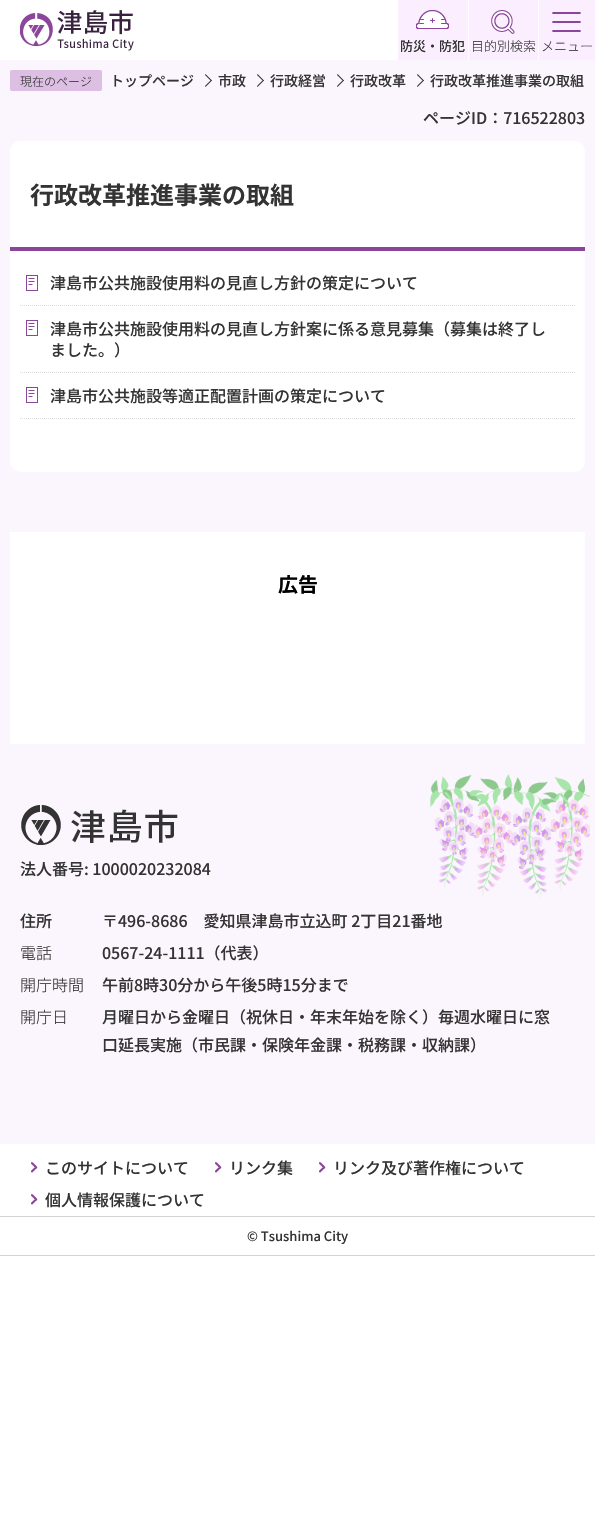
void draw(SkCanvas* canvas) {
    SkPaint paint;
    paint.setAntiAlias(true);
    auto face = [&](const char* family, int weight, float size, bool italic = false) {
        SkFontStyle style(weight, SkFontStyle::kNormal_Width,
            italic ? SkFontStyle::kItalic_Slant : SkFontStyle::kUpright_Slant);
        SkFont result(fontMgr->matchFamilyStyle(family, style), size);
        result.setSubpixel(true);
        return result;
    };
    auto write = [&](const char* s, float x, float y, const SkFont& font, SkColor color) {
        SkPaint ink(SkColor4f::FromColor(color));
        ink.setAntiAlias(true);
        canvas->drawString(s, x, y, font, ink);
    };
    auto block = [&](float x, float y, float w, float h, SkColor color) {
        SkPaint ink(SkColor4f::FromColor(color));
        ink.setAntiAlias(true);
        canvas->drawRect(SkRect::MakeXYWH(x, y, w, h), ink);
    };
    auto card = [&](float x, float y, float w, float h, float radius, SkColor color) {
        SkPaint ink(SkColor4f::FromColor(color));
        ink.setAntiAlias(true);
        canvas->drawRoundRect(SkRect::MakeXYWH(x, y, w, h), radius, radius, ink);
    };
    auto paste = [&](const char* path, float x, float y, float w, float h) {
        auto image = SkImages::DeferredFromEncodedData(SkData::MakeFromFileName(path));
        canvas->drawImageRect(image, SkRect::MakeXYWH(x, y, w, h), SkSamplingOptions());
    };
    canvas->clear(SK_ColorWHITE);
    paste("pic1.png", 20, 10, 114, 41);
    block(398, 0, 70, 60, SkColorSetRGB(250, 238, 255));
    paste("pic2.png", 416, 10, 33, 19);
    auto kFont1 = face("Noto Sans JP", 500, 13);
    write("防災・防犯", 400, 51, kFont1, SkColorSetRGB(51, 51, 51));
    block(469, 0, 69, 60, SkColorSetRGB(250, 238, 255));
    paste("pic3.png", 491, 10, 24, 24);
    auto kFont2 = face("Noto Sans JP", 300, 13);
    write("目的別検索", 471, 51, kFont2, SkColorSetRGB(51, 51, 51));
    block(539, 0, 56, 60, SkColorSetRGB(250, 238, 255));
    paste("pic4.png", 552, 12, 29, 20);
    write("メニュー", 541, 51, kFont2, SkColorSetRGB(51, 51, 51));
    block(0, 60, 595, 1084, SkColorSetRGB(251, 245, 253));
    card(10, 70, 92, 21, 2, SkColorSetRGB(220, 191, 227));
    auto kFont3 = face("Noto Sans JP", 300, 12);
    write("現在のページ", 20, 86, kFont3, SkColorSetRGB(51, 51, 51));
    auto kFont4 = face("Noto Sans JP", 500, 14);
    write("トップページ", 110, 86, kFont4, SkColorSetRGB(51, 51, 51));
    paint.setColor(SkColorSetRGB(51, 51, 51));
    canvas->drawPath(SkPathBuilder().moveTo(205.5f, 74).lineTo(212, 80.5f).lineTo(211, 81).lineTo(205, 75).close().detach(), paint);
    canvas->drawPath(SkPathBuilder().moveTo(211, 80).lineTo(212, 80.5f).lineTo(205.5f, 87).lineTo(205, 86).close().detach(), paint);
    write("市政", 218, 86, kFont4, SkColorSetRGB(51, 51, 51));
    canvas->drawPath(SkPathBuilder().moveTo(257.5f, 74).lineTo(264, 80.5f).lineTo(263, 81).lineTo(257, 75).close().detach(), paint);
    canvas->drawPath(SkPathBuilder().moveTo(263, 80).lineTo(264, 80.5f).lineTo(257.5f, 87).lineTo(257, 86).close().detach(), paint);
    write("行政経営", 270, 86, kFont4, SkColorSetRGB(51, 51, 51));
    canvas->drawPath(SkPathBuilder().moveTo(337.5f, 74).lineTo(344, 80.5f).lineTo(343, 81).lineTo(337, 75).close().detach(), paint);
    canvas->drawPath(SkPathBuilder().moveTo(343, 80).lineTo(344, 80.5f).lineTo(337.5f, 87).lineTo(337, 86).close().detach(), paint);
    write("行政改革", 350, 86, kFont4, SkColorSetRGB(51, 51, 51));
    canvas->drawPath(SkPathBuilder().moveTo(417.5f, 74).lineTo(424, 80.5f).lineTo(423, 81).lineTo(417, 75).close().detach(), paint);
    canvas->drawPath(SkPathBuilder().moveTo(423, 80).lineTo(424, 80.5f).lineTo(417.5f, 87).lineTo(417, 86).close().detach(), paint);
    write("行政改革推進事業の取組", 430, 86, kFont4, SkColorSetRGB(51, 51, 51));
    auto kFont5 = face("Noto Sans JP", 500, 16);
    write("ページID：716522803", 423, 124, kFont5, SkColorSetRGB(51, 51, 51));
    card(10, 141, 575, 331, 10, SK_ColorWHITE);
    block(10, 247, 575, 4, SkColorSetRGB(139, 70, 155));
    auto kFont6 = face("Noto Sans JP", 700, 24);
    write("行政改革推進事業の取組", 30, 204, kFont6, SkColorSetRGB(51, 51, 51));
    paint.setStyle(SkPaint::kStroke_Style);
    paint.setStrokeWidth(1);
    paint.setColor(SkColorSetRGB(220, 220, 220));
    paint.setPathEffect(SkDashPathEffect::Make({{1, 1}}, 0));
    canvas->drawPath(SkPathBuilder().moveTo(20, 305.5f).lineTo(575, 305.5f).detach(), paint);
    paint.setPathEffect(nullptr);
    paste("pic5.png", 26, 275, 12, 16);
    write("津島市公共施設使用料の見直し方針の策定について", 50, 289, kFont5, SkColorSetRGB(51, 51, 51));
    paint.setPathEffect(SkDashPathEffect::Make({{1, 1}}, 0));
    canvas->drawPath(SkPathBuilder().moveTo(20, 372.5f).lineTo(575, 372.5f).detach(), paint);
    paint.setPathEffect(nullptr);
    paste("pic5.png", 26, 320, 12, 16);
    write("津島市公共施設使用料の見直し方針案に係る意見募集（募集は終了し", 50, 335, kFont5, SkColorSetRGB(51, 51, 51));
    write("ました。）", 50, 356, kFont5, SkColorSetRGB(51, 51, 51));
    paint.setPathEffect(SkDashPathEffect::Make({{1, 1}}, 0));
    canvas->drawPath(SkPathBuilder().moveTo(20, 418.5f).lineTo(575, 418.5f).detach(), paint);
    paint.setPathEffect(nullptr);
    paste("pic5.png", 26, 387, 12, 16);
    write("津島市公共施設等適正配置計画の策定について", 50, 402, kFont5, SkColorSetRGB(51, 51, 51));
    block(10, 532, 575, 212, SK_ColorWHITE);
    auto kFont7 = face("Noto Sans JP", 700, 20);
    write("広告", 278, 592, kFont7, SK_ColorBLACK);
    paste("pic6.png", 430, 774, 160, 125);
    paste("pic7.png", 21, 805, 157, 40);
    write("法人番号: 1000020232084", 20, 875, kFont5, SkColorSetRGB(51, 51, 51));
    write("住所", 20, 927, kFont5, SkColorSetRGB(51, 51, 51));
    write("〒496-8686　愛知県津島市立込町 2丁目21番地", 102, 927, kFont5, SkColorSetRGB(51, 51, 51));
    auto kFont8 = face("Noto Sans JP", 300, 16);
    write("電話", 20, 959, kFont8, SkColorSetRGB(51, 51, 51));
    write("0567-24-1111（代表）", 102, 959, kFont5, SkColorSetRGB(51, 51, 51));
    write("開庁時間", 20, 991, kFont8, SkColorSetRGB(51, 51, 51));
    write("午前8時30分から午後5時15分まで", 102, 991, kFont5, SkColorSetRGB(51, 51, 51));
    write("開庁日", 20, 1023, kFont8, SkColorSetRGB(51, 51, 51));
    write("月曜日から金曜日（祝休日・年末年始を除く）毎週水曜日に窓", 102, 1023, kFont5, SkColorSetRGB(51, 51, 51));
    write("口延長実施（市民課・保険年金課・税務課・収納課）", 102, 1051, kFont5, SkColorSetRGB(51, 51, 51));
    paste("pic8.png", 31, 1162, 7, 11);
    write("このサイトについて", 45, 1174, kFont5, SkColorSetRGB(51, 51, 51));
    paste("pic8.png", 215, 1162, 7, 11);
    write("リンク集", 229, 1174, kFont5, SkColorSetRGB(51, 51, 51));
    paste("pic8.png", 319, 1162, 7, 11);
    write("リンク及び著作権について", 333, 1174, kFont5, SkColorSetRGB(51, 51, 51));
    paste("pic8.png", 31, 1194, 7, 11);
    write("個人情報保護について", 45, 1206, kFont5, SkColorSetRGB(51, 51, 51));
    block(0, 1216, 595, 1, SkColorSetRGB(211, 211, 211));
    block(0, 1255, 595, 1, SkColorSetRGB(211, 211, 211));
    write("© Tsushima City", 247, 1241, kFont1, SkColorSetRGB(51, 51, 51));
}
